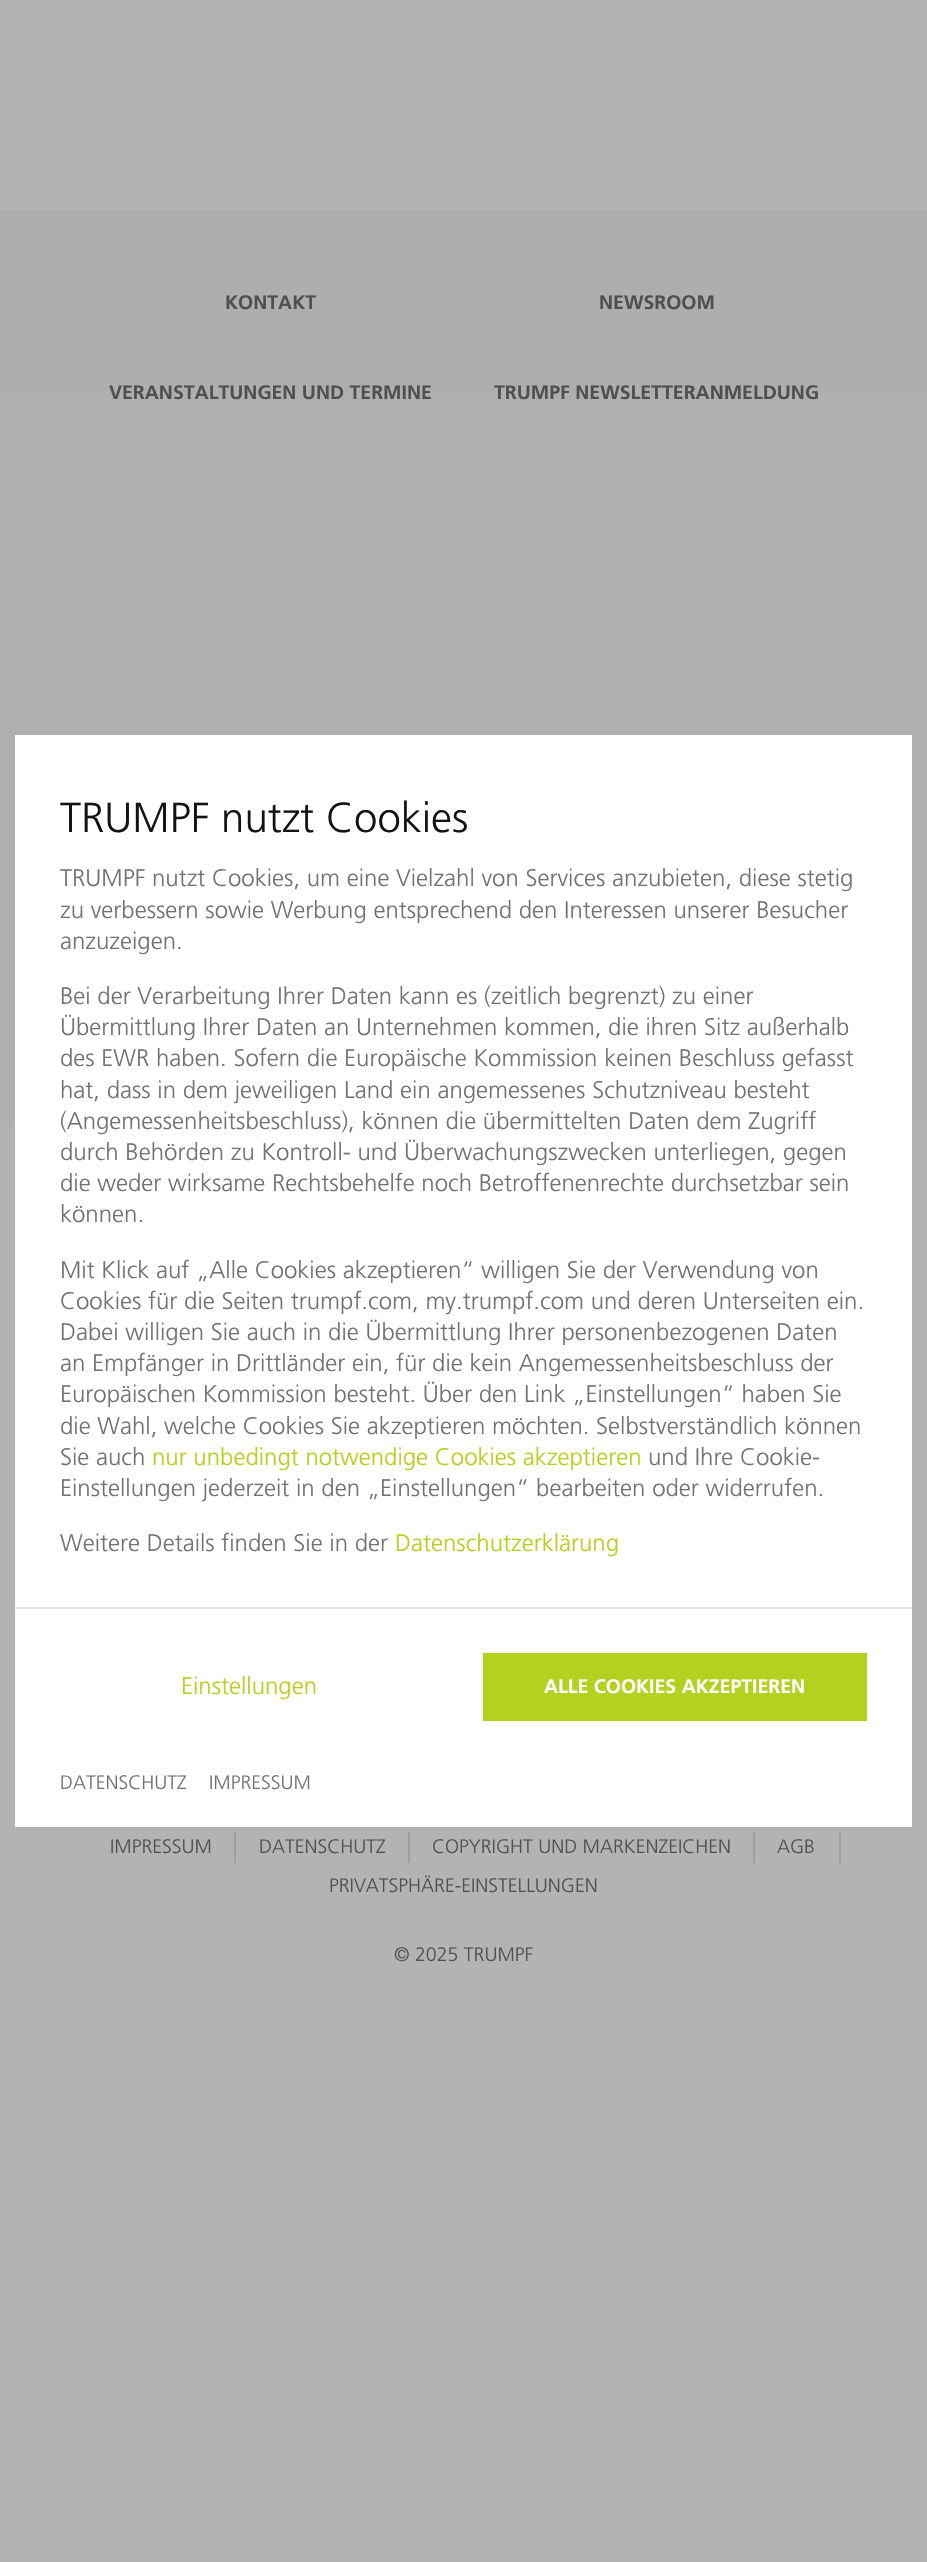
void draw(SkCanvas* canvas) {
    SkPaint paint;
    paint.setAntiAlias(true);
    auto face = [&](const char* family, int weight, float size, bool italic = false) {
        SkFontStyle style(weight, SkFontStyle::kNormal_Width,
            italic ? SkFontStyle::kItalic_Slant : SkFontStyle::kUpright_Slant);
        SkFont result(fontMgr->matchFamilyStyle(family, style), size);
        result.setSubpixel(true);
        return result;
    };
    auto write = [&](const char* s, float x, float y, const SkFont& font, SkColor color) {
        SkPaint ink(SkColor4f::FromColor(color));
        ink.setAntiAlias(true);
        canvas->drawString(s, x, y, font, ink);
    };
    auto block = [&](float x, float y, float w, float h, SkColor color) {
        SkPaint ink(SkColor4f::FromColor(color));
        ink.setAntiAlias(true);
        canvas->drawRect(SkRect::MakeXYWH(x, y, w, h), ink);
    };
    canvas->clear(SkColorSetRGB(179, 179, 179));
    {
        const SkColor colors[] = {SkColorSetRGB(174, 174, 174), SkColorSetRGB(179, 179, 179)};
        const float stops[] = {0, 1};
        const SkPoint ends[] = {{463, 210}, {464, 2043}};
        paint.setShader(SkGradientShader::MakeLinear(ends, colors, stops, 2, SkTileMode::kClamp));
        paint.setAlpha(255);
    }
    canvas->drawRect(SkRect::MakeXYWH(0, 210, 927, 917), paint);
    auto kFont1 = face("Frutiger", 700, 19.5f);
    write("KONTAKT", 225, 309, kFont1, SkColorSetRGB(80, 80, 80));
    write("NEWSROOM", 599, 309, kFont1, SkColorSetRGB(80, 80, 80));
    write("VERANSTALTUNGEN UND TERMINE", 109, 399, kFont1, SkColorSetRGB(80, 80, 80));
    write("TRUMPF NEWSLETTERANMELDUNG", 494, 399, kFont1, SkColorSetRGB(80, 80, 80));
    block(234, 1832, 2, 31, SkColorSetRGB(158, 158, 158));
    auto kFont2 = face("Frutiger", 300, 19.5f);
    write("IMPRESSUM", 110, 1853, kFont2, SkColorSetRGB(80, 80, 80));
    block(408, 1832, 2, 31, SkColorSetRGB(158, 158, 158));
    write("DATENSCHUTZ", 259, 1853, kFont2, SkColorSetRGB(80, 80, 80));
    block(753, 1832, 2, 31, SkColorSetRGB(158, 158, 158));
    write("COPYRIGHT UND MARKENZEICHEN", 432, 1853, kFont2, SkColorSetRGB(80, 80, 80));
    block(839, 1832, 2, 31, SkColorSetRGB(158, 158, 158));
    write("AGB", 777, 1853, kFont2, SkColorSetRGB(80, 80, 80));
    write("PRIVATSPHÄRE-EINSTELLUNGEN", 329, 1892, kFont2, SkColorSetRGB(80, 80, 80));
    write("© 2025 TRUMPF", 394, 1961, kFont2, SkColorSetRGB(80, 80, 80));
    block(15, 735, 897, 1092, SK_ColorWHITE);
    auto kFont3 = face("Frutiger", 300, 42);
    write("TRUMPF nutzt Cookies", 60, 832, kFont3, SkColorSetRGB(19, 19, 19));
    auto kFont4 = face("Frutiger", 300, 24);
    write("TRUMPF nutzt Cookies, um eine Vielzahl von Services anzubieten, diese stetig", 60, 886, kFont4, SkColorSetRGB(114, 114, 114));
    write("zu verbessern sowie Werbung entsprechend den Interessen unserer Besucher", 60, 918, kFont4, SkColorSetRGB(114, 114, 114));
    write("anzuzeigen.", 60, 949, kFont4, SkColorSetRGB(114, 114, 114));
    write("Bei der Verarbeitung Ihrer Daten kann es (zeitlich begrenzt) zu einer", 60, 1004, kFont4, SkColorSetRGB(114, 114, 114));
    write("Übermittlung Ihrer Daten an Unternehmen kommen, die ihren Sitz außerhalb", 60, 1035, kFont4, SkColorSetRGB(114, 114, 114));
    write("des EWR haben. Sofern die Europäische Kommission keinen Beschluss gefasst", 60, 1066, kFont4, SkColorSetRGB(114, 114, 114));
    write("hat, dass in dem jeweiligen Land ein angemessenes Schutzniveau besteht", 60, 1098, kFont4, SkColorSetRGB(114, 114, 114));
    write("(Angemessenheitsbeschluss), können die übermittelten Daten dem Zugriff", 60, 1129, kFont4, SkColorSetRGB(114, 114, 114));
    write("durch Behörden zu Kontroll- und Überwachungszwecken unterliegen, gegen", 60, 1160, kFont4, SkColorSetRGB(114, 114, 114));
    write("die weder wirksame Rechtsbehelfe noch Betroffenenrechte durchsetzbar sein", 60, 1191, kFont4, SkColorSetRGB(114, 114, 114));
    write("können.", 60, 1222, kFont4, SkColorSetRGB(114, 114, 114));
    write("Mit Klick auf „Alle Cookies akzeptieren“ willigen Sie der Verwendung von", 60, 1278, kFont4, SkColorSetRGB(114, 114, 114));
    write("Cookies für die Seiten trumpf.com, my.trumpf.com und deren Unterseiten ein.", 60, 1309, kFont4, SkColorSetRGB(114, 114, 114));
    write("Dabei willigen Sie auch in die Übermittlung Ihrer personenbezogenen Daten", 60, 1340, kFont4, SkColorSetRGB(114, 114, 114));
    write("an Empfänger in Drittländer ein, für die kein Angemessenheitsbeschluss der", 60, 1371, kFont4, SkColorSetRGB(114, 114, 114));
    write("Europäischen Kommission besteht. Über den Link „Einstellungen“ haben Sie", 60, 1402, kFont4, SkColorSetRGB(114, 114, 114));
    write("die Wahl, welche Cookies Sie akzeptieren möchten. Selbstverständlich können", 60, 1434, kFont4, SkColorSetRGB(114, 114, 114));
    write("Sie auch", 60, 1465, kFont4, SkColorSetRGB(114, 114, 114));
    write("nur unbedingt notwendige Cookies akzeptieren", 152, 1465, kFont4, SkColorSetRGB(179, 209, 30));
    write("und Ihre Cookie-", 648, 1465, kFont4, SkColorSetRGB(114, 114, 114));
    write("Einstellungen jederzeit in den „Einstellungen“ bearbeiten oder widerrufen.", 60, 1496, kFont4, SkColorSetRGB(114, 114, 114));
    write("Weitere Details finden Sie in der", 60, 1551, kFont4, SkColorSetRGB(114, 114, 114));
    write("Datenschutzerklärung", 395, 1551, kFont4, SkColorSetRGB(179, 209, 30));
    block(15, 1607, 897, 2, SkColorSetRGB(226, 226, 226));
    write("Einstellungen", 181, 1694, kFont4, SkColorSetRGB(179, 209, 30));
    block(483, 1653, 384, 68, SkColorSetRGB(179, 209, 30));
    write("ALLE COOKIES AKZEPTIEREN", 544, 1693, kFont1, SK_ColorWHITE);
    write("DATENSCHUTZ", 60, 1789, kFont2, SkColorSetRGB(114, 114, 114));
    write("IMPRESSUM", 209, 1789, kFont2, SkColorSetRGB(114, 114, 114));
}
